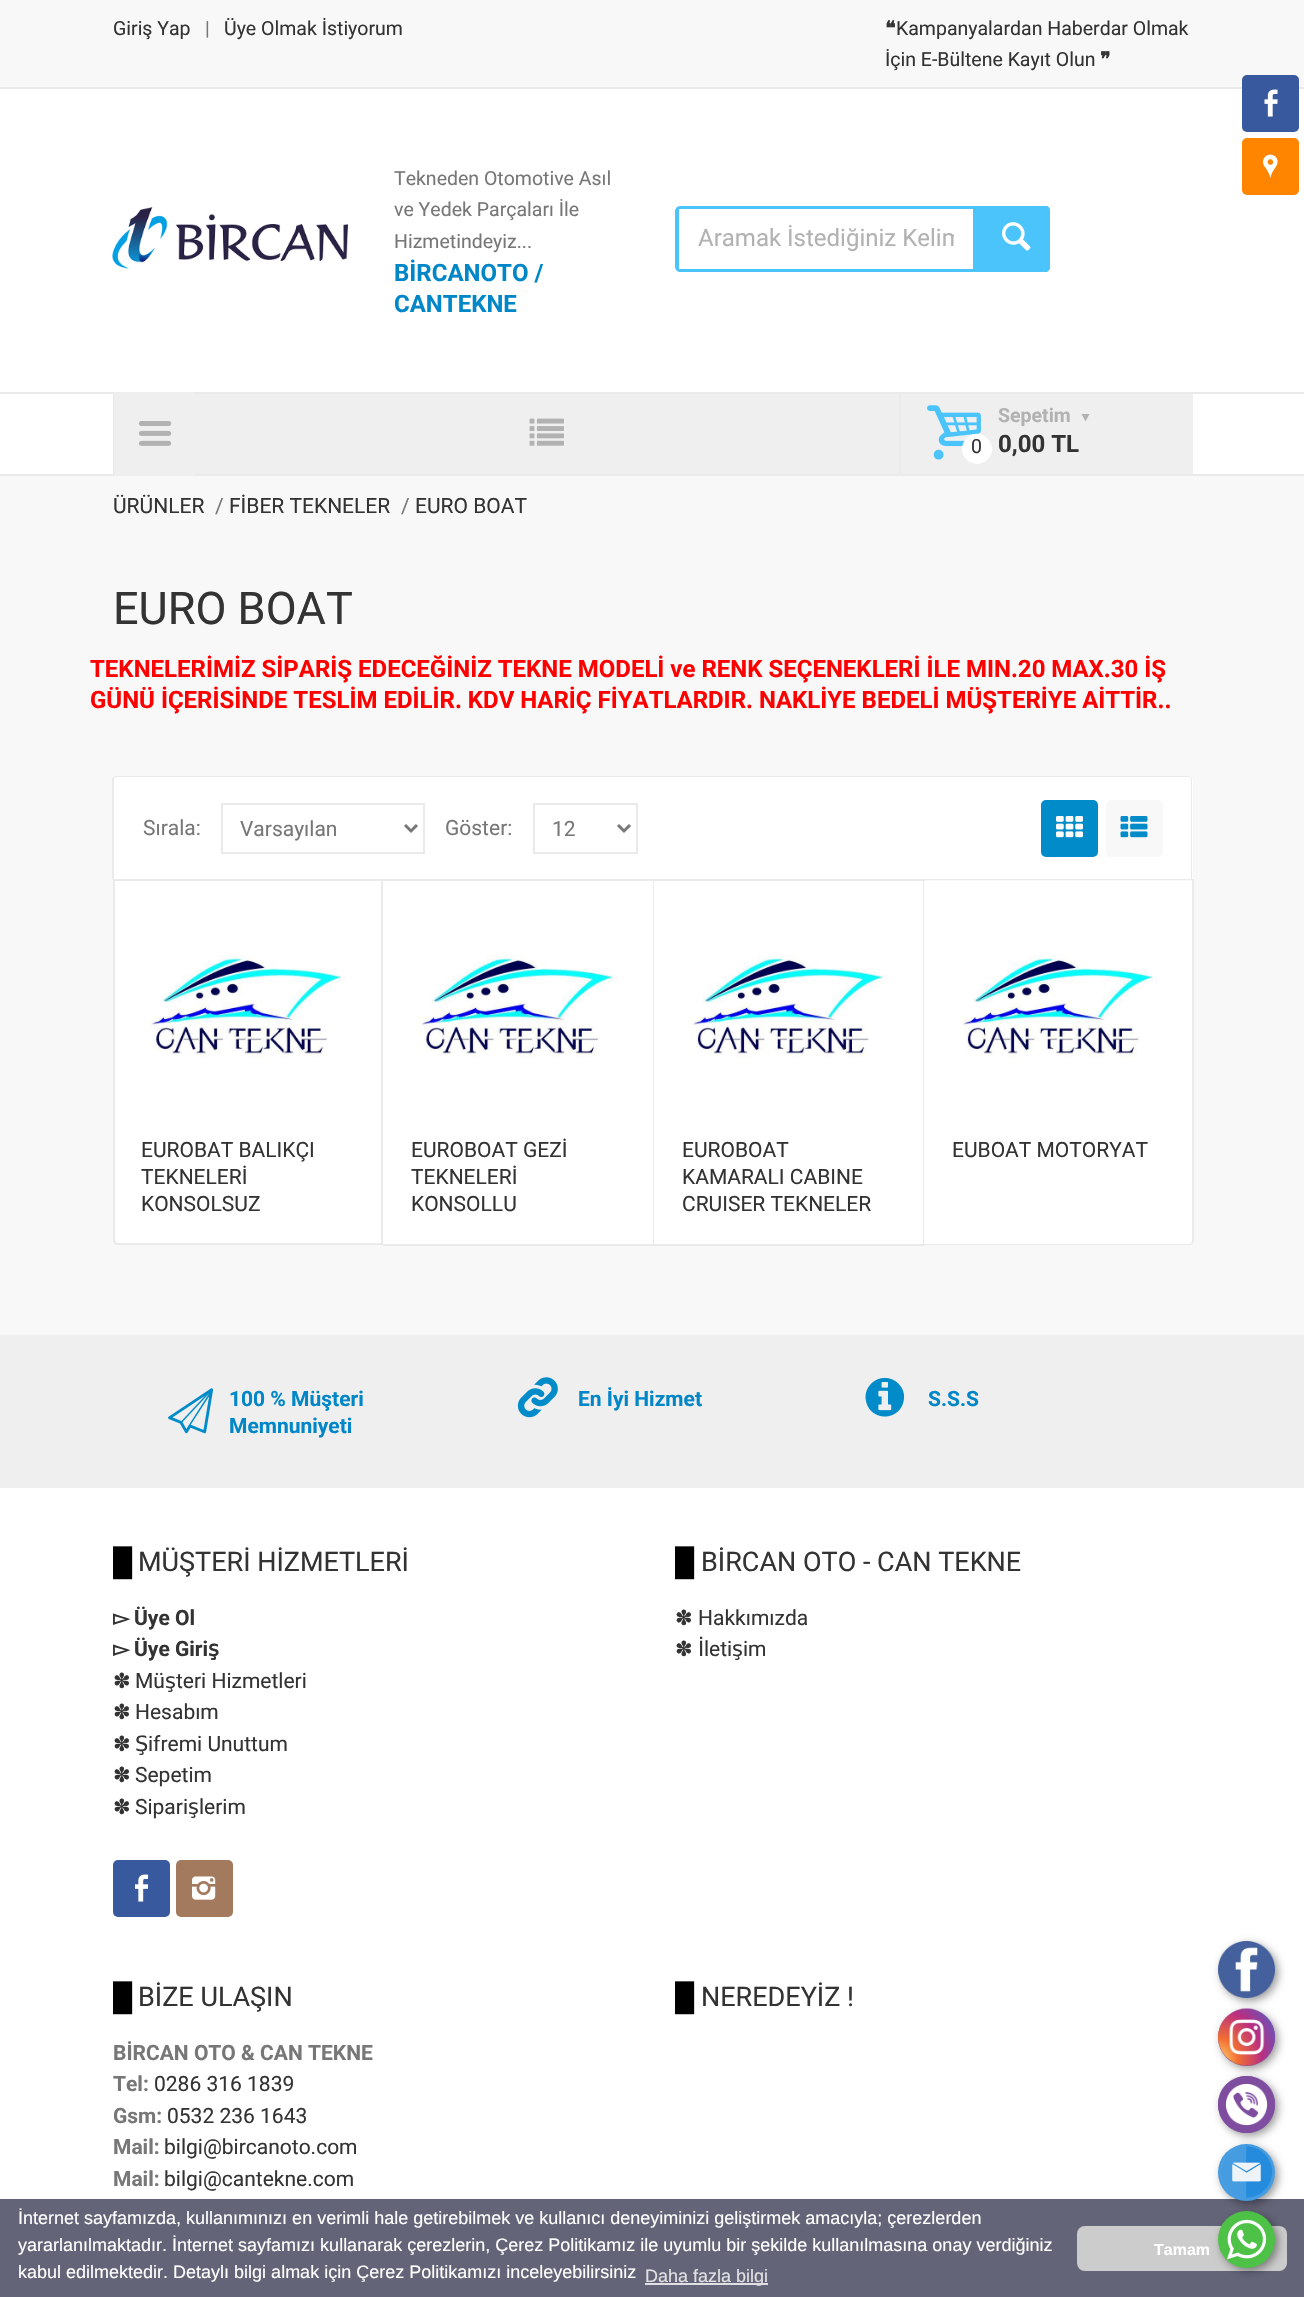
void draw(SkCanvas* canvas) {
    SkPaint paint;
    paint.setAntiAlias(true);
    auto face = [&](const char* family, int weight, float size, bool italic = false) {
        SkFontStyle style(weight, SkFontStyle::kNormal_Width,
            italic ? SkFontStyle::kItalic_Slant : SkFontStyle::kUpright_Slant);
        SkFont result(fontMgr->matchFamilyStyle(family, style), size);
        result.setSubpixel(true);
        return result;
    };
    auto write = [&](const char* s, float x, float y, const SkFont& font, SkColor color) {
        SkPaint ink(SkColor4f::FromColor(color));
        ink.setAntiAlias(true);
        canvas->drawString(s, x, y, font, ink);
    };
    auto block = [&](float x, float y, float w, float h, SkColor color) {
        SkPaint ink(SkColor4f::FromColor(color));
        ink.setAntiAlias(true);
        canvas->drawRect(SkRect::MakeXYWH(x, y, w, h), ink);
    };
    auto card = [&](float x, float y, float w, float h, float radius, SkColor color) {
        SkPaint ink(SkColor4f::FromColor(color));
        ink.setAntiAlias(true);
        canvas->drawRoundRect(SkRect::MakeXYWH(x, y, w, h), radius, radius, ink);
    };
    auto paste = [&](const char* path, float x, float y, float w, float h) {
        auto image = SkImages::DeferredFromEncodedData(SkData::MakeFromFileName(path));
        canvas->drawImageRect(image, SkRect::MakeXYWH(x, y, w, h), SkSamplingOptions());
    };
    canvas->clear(SK_ColorWHITE);
    block(0, 0, 1304, 87, SkColorSetRGB(248, 248, 248));
    auto kFont1 = face("Roboto", 400, 19.5f);
    write("Giriş Yap", 113, 35, kFont1, SkColorSetRGB(51, 51, 51));
    write("|", 205, 35, kFont1, SkColorSetRGB(119, 119, 119));
    write("Üye Olmak İstiyorum", 224, 35, kFont1, SkColorSetRGB(51, 51, 51));
    auto kFont2 = face("DejaVu Sans", 700, 19.5f);
    write("❝", 885, 35, kFont2, SkColorSetRGB(51, 51, 51));
    write("Kampanyalardan Haberdar Olmak", 896, 35, kFont1, SkColorSetRGB(51, 51, 51));
    write("İçin E-Bültene Kayıt Olun", 885, 66, kFont1, SkColorSetRGB(51, 51, 51));
    write("❞", 1100, 66, kFont2, SkColorSetRGB(51, 51, 51));
    block(0, 87, 1304, 2, SkColorSetRGB(234, 234, 234));
    paste("pic1.png", 112, 207, 236, 62);
    write("Tekneden Otomotive Asıl", 394, 185, kFont1, SkColorSetRGB(119, 119, 119));
    write("ve Yedek Parçaları İle", 394, 216, kFont1, SkColorSetRGB(119, 119, 119));
    write("Hizmetindeyiz...", 394, 248, kFont1, SkColorSetRGB(119, 119, 119));
    auto kFont3 = face("Roboto", 700, 24);
    write("BİRCANOTO /", 394, 281, kFont3, SkColorSetRGB(1, 134, 200));
    write("CANTEKNE", 394, 312, kFont3, SkColorSetRGB(1, 134, 200));
    paint.setStyle(SkPaint::kStroke_Style);
    paint.setStrokeWidth(2);
    paint.setColor(SkColorSetRGB(74, 196, 250));
    canvas->drawPath(SkPathBuilder().moveTo(680, 207).lineTo(974, 207).lineTo(974, 271).lineTo(680, 271).cubicTo(678, 271, 676, 269, 676, 267).lineTo(676, 211).cubicTo(676, 209, 678, 207, 680, 207).close().detach(), paint);
    block(678, 208, 297, 1, SkColorSetRGB(74, 196, 250));
    block(678, 269, 297, 1, SkColorSetRGB(74, 196, 250));
    block(677, 209, 2, 61, SkColorSetRGB(74, 196, 250));
    canvas->save();
    canvas->clipRect(SkRect::MakeXYWH(698, 224, 256, 28));
    auto kFont4 = face("Roboto", 400, 24);
    write("Aramak İstediğiniz Kelim", 698, 246, kFont4, SkColorSetRGB(178, 178, 178));
    canvas->restore();
    paint.setStyle(SkPaint::kFill_Style);
    canvas->drawPath(SkPathBuilder().moveTo(975, 206).lineTo(1045, 206).cubicTo(1048, 206, 1050, 208, 1050, 211).lineTo(1050, 267).cubicTo(1050, 270, 1048, 272, 1045, 272).lineTo(975, 272).close().detach(), paint);
    canvas->drawPath(SkPathBuilder(SkPathFillType::kEvenOdd).moveTo(975, 206).lineTo(1046, 206).cubicTo(1048, 206, 1050, 208, 1050, 210).lineTo(1050, 267).cubicTo(1050, 269, 1048, 272, 1046, 272).lineTo(975, 272).close().moveTo(975, 208).lineTo(1046, 208).cubicTo(1046, 208, 1047, 209, 1047, 210).lineTo(1047, 267).cubicTo(1047, 268, 1046, 268, 1046, 268).lineTo(975, 268).close().detach(), paint);
    paste("pic2.png", 1002, 222, 29, 29);
    block(0, 392, 1304, 2, SkColorSetRGB(234, 234, 234));
    block(0, 474, 1304, 2, SkColorSetRGB(234, 234, 234));
    block(113, 392, 1, 84, SkColorSetRGB(234, 234, 234));
    block(114, 392, 81, 84, SkColorSetRGB(239, 239, 239));
    paste("pic3.png", 138, 421, 34, 25);
    block(899, 392, 2, 84, SkColorSetRGB(234, 234, 234));
    block(195, 394, 704, 80, SkColorSetRGB(239, 239, 239));
    paste("pic4.png", 529, 418, 35, 28);
    block(901, 394, 292, 80, SkColorSetRGB(239, 239, 239));
    paste("pic5.png", 927, 405, 54, 55);
    auto kFont5 = face("Roboto", 700, 19.5f);
    write("Sepetim", 998, 422, kFont5, SkColorSetRGB(178, 178, 178));
    paint.setColor(SkColorSetRGB(178, 178, 178));
    canvas->drawPath(SkPathBuilder().moveTo(1085.5f, 421.5f).lineTo(1081.5f, 414).lineTo(1089.5f, 414).close().detach(), paint);
    paint.setColor(SK_ColorWHITE);
    canvas->drawCircle(977, 449, 15, paint);
    write("0", 971, 453, kFont1, SkColorSetRGB(51, 51, 51));
    write("0,00 TL", 998, 452, kFont3, SkColorSetRGB(51, 51, 51));
    block(0, 476, 1304, 859, SkColorSetRGB(248, 248, 248));
    auto kFont6 = face("Roboto", 400, 21);
    write("ÜRÜNLER", 113, 513, kFont6, SkColorSetRGB(51, 51, 51));
    write("/", 215, 513, kFont6, SkColorSetRGB(119, 119, 119));
    write("FİBER TEKNELER", 229, 513, kFont6, SkColorSetRGB(51, 51, 51));
    write("/", 401, 513, kFont6, SkColorSetRGB(119, 119, 119));
    write("EURO BOAT", 415, 513, kFont6, SkColorSetRGB(51, 51, 51));
    auto kFont7 = face("Roboto", 400, 45);
    write("EURO BOAT", 113, 624, kFont7, SkColorSetRGB(51, 51, 51));
    write("TEKNELERİMİZ SİPARİŞ EDECEĞİNİZ TEKNE MODELİ ve RENK SEÇENEKLERİ İLE MIN.20 MAX.30 İŞ", 90, 677, kFont3, SkColorSetRGB(255, 0, 0));
    write("GÜNÜ İÇERİSİNDE TESLİM EDİLİR. KDV HARİÇ FİYATLARDIR. NAKLİYE BEDELİ MÜŞTERİYE AİTTİR..", 90, 708, kFont3, SkColorSetRGB(255, 0, 0));
    canvas->drawPath(SkPathBuilder().moveTo(118, 776).lineTo(1188, 776).cubicTo(1191, 776, 1193, 778, 1193, 781).lineTo(1193, 879).lineTo(113, 879).lineTo(113, 781).cubicTo(113, 778, 115, 776, 118, 776).close().detach(), paint);
    paint.setColor(SkColorSetRGB(234, 234, 234));
    canvas->drawPath(SkPathBuilder(SkPathFillType::kEvenOdd).moveTo(117, 776).lineTo(1188, 776).cubicTo(1190, 776, 1192, 778, 1192, 780).lineTo(1192, 879).lineTo(112, 879).lineTo(112, 780).cubicTo(112, 778, 115, 776, 117, 776).close().moveTo(117, 777).lineTo(1188, 777).cubicTo(1190, 777, 1191, 778, 1191, 780).lineTo(1191, 879).lineTo(114, 879).lineTo(114, 780).cubicTo(114, 778, 115, 777, 117, 777).close().detach(), paint);
    write("Sırala:", 143, 835, kFont6, SkColorSetRGB(119, 119, 119));
    paint.setStyle(SkPaint::kStroke_Style);
    canvas->drawRect(SkRect::MakeXYWH(222, 804, 202, 49), paint);
    paint.setStrokeWidth(3);
    paint.setColor(SkColorSetRGB(119, 119, 119));
    canvas->drawPath(SkPathBuilder().moveTo(405, 825).lineTo(411, 831).lineTo(417, 825).detach(), paint);
    write("Varsayılan", 240, 836, kFont6, SkColorSetRGB(119, 119, 119));
    write("Göster:", 445, 835, kFont6, SkColorSetRGB(119, 119, 119));
    paint.setStrokeWidth(2);
    paint.setColor(SkColorSetRGB(234, 234, 234));
    canvas->drawRect(SkRect::MakeXYWH(534, 804, 103, 49), paint);
    paint.setStrokeWidth(3);
    paint.setColor(SkColorSetRGB(119, 119, 119));
    canvas->drawPath(SkPathBuilder().moveTo(618, 825).lineTo(624, 831).lineTo(630, 825).detach(), paint);
    write("12", 552, 836, kFont6, SkColorSetRGB(119, 119, 119));
    card(1041, 800, 57, 57, 5, SkColorSetRGB(1, 139, 200));
    paste("pic6.png", 1056, 816, 27, 22);
    card(1106, 800, 57, 57, 5, SkColorSetRGB(248, 248, 248));
    paste("pic7.png", 1120, 816, 28, 22);
    paint.setStyle(SkPaint::kFill_Style);
    paint.setColor(SK_ColorWHITE);
    canvas->drawPath(SkPathBuilder().moveTo(114, 880).lineTo(382, 880).lineTo(382, 1244).lineTo(118, 1244).cubicTo(116, 1244, 114, 1242, 114, 1240).close().detach(), paint);
    paint.setStyle(SkPaint::kStroke_Style);
    paint.setStrokeWidth(2);
    paint.setColor(SkColorSetRGB(234, 234, 234));
    canvas->drawPath(SkPathBuilder().moveTo(114, 880).lineTo(382, 880).lineTo(382, 1244).lineTo(118, 1244).cubicTo(116, 1244, 114, 1242, 114, 1240).close().detach(), paint);
    paste("pic8.png", 148, 955, 198, 103);
    write("EUROBAT BALIKÇI", 141, 1157, kFont6, SkColorSetRGB(51, 51, 51));
    write("TEKNELERİ", 141, 1184, kFont6, SkColorSetRGB(51, 51, 51));
    write("KONSOLSUZ", 141, 1211, kFont6, SkColorSetRGB(51, 51, 51));
    block(383, 881, 270, 363, SK_ColorWHITE);
    block(383, 879, 541, 2, SkColorSetRGB(234, 234, 234));
    block(653, 879, 1, 366, SkColorSetRGB(234, 234, 234));
    block(383, 1244, 271, 2, SkColorSetRGB(234, 234, 234));
    paste("pic9.png", 418, 955, 199, 103);
    write("EUROBOAT GEZİ", 411, 1157, kFont6, SkColorSetRGB(51, 51, 51));
    write("TEKNELERİ", 411, 1184, kFont6, SkColorSetRGB(51, 51, 51));
    write("KONSOLLU", 411, 1211, kFont6, SkColorSetRGB(51, 51, 51));
    block(654, 881, 269, 363, SK_ColorWHITE);
    block(923, 879, 2, 366, SkColorSetRGB(234, 234, 234));
    block(654, 1244, 270, 2, SkColorSetRGB(234, 234, 234));
    paste("pic10.png", 689, 955, 198, 103);
    write("EUROBOAT", 682, 1157, kFont6, SkColorSetRGB(51, 51, 51));
    write("KAMARALI CABINE", 682, 1184, kFont6, SkColorSetRGB(51, 51, 51));
    write("CRUISER TEKNELER", 682, 1211, kFont6, SkColorSetRGB(51, 51, 51));
    paint.setStyle(SkPaint::kFill_Style);
    paint.setColor(SK_ColorWHITE);
    canvas->drawPath(SkPathBuilder().moveTo(924, 881).lineTo(1193, 881).lineTo(1193, 1241).cubicTo(1193, 1242.5f, 1191.5f, 1244, 1190, 1244).lineTo(924, 1244).close().detach(), paint);
    paint.setColor(SkColorSetRGB(234, 234, 234));
    canvas->drawPath(SkPathBuilder(SkPathFillType::kEvenOdd).moveTo(924, 879).lineTo(1194, 879).lineTo(1194, 1240).cubicTo(1194, 1243, 1192, 1245, 1190, 1245).lineTo(924, 1245).close().moveTo(924, 880).lineTo(1192, 880).lineTo(1192, 1240).cubicTo(1192, 1242, 1191, 1244, 1190, 1244).lineTo(924, 1244).close().detach(), paint);
    paste("pic10.png", 959, 955, 198, 103);
    write("EUBOAT MOTORYAT", 952, 1157, kFont6, SkColorSetRGB(51, 51, 51));
    block(0, 1335, 1304, 153, SkColorSetRGB(239, 239, 239));
    paste("pic11.png", 168, 1388, 46, 46);
    auto kFont8 = face("Roboto", 700, 21);
    write("100 % Müşteri", 229, 1406, kFont8, SkColorSetRGB(1, 134, 200));
    write("Memnuniyeti", 229, 1433, kFont8, SkColorSetRGB(1, 134, 200));
    paste("pic12.png", 517, 1377, 41, 41);
    write("En İyi Hizmet", 578, 1406, kFont8, SkColorSetRGB(1, 134, 200));
    paste("pic13.png", 865, 1377, 40, 40);
    write("S.S.S", 928, 1406, kFont8, SkColorSetRGB(1, 134, 200));
    auto kFont9 = face("Liberation Sans", 400, 27);
    write("█", 113, 1571, kFont9, SK_ColorBLACK);
    auto kFont10 = face("Roboto", 400, 27);
    write("MÜŞTERİ HİZMETLERİ", 138, 1571, kFont10, SkColorSetRGB(51, 51, 51));
    auto kFont11 = face("DejaVu Sans", 700, 21);
    write("▻", 113, 1625, kFont11, SkColorSetRGB(51, 51, 51));
    write("Üye Ol", 134, 1625, kFont8, SkColorSetRGB(51, 51, 51));
    write("▻", 113, 1656, kFont11, SkColorSetRGB(51, 51, 51));
    write("Üye Giri", 134, 1656, kFont8, SkColorSetRGB(51, 51, 51));
    write("ş", 208, 1656, kFont11, SkColorSetRGB(51, 51, 51));
    auto kFont12 = face("DejaVu Sans", 400, 21);
    write("✽", 113, 1688, kFont12, SkColorSetRGB(51, 51, 51));
    write("Mü", 135, 1688, kFont6, SkColorSetRGB(51, 51, 51));
    write("ş", 165, 1688, kFont12, SkColorSetRGB(51, 51, 51));
    write("teri Hizmetleri", 176, 1688, kFont6, SkColorSetRGB(51, 51, 51));
    write("✽", 113, 1719, kFont12, SkColorSetRGB(51, 51, 51));
    write("Hesabım", 135, 1719, kFont6, SkColorSetRGB(51, 51, 51));
    write("✽", 113, 1751, kFont12, SkColorSetRGB(51, 51, 51));
    write("Ş", 135, 1751, kFont12, SkColorSetRGB(51, 51, 51));
    write("ifremi Unuttum", 148, 1751, kFont6, SkColorSetRGB(51, 51, 51));
    write("✽", 113, 1782, kFont12, SkColorSetRGB(51, 51, 51));
    write("Sepetim", 135, 1782, kFont6, SkColorSetRGB(51, 51, 51));
    write("✽", 113, 1814, kFont12, SkColorSetRGB(51, 51, 51));
    write("Sipari", 135, 1814, kFont6, SkColorSetRGB(51, 51, 51));
    write("ş", 188, 1814, kFont12, SkColorSetRGB(51, 51, 51));
    write("lerim", 199, 1814, kFont6, SkColorSetRGB(51, 51, 51));
    card(113, 1860, 57, 57, 5, SkColorSetRGB(57, 89, 159));
    paste("pic14.png", 135, 1874, 14, 28);
    card(176, 1860, 57, 57, 5, SkColorSetRGB(164, 122, 94));
    paste("pic15.png", 192, 1876, 24, 24);
    write("█", 675, 1571, kFont9, SK_ColorBLACK);
    write("BİRCAN OTO - CAN TEKNE", 701, 1571, kFont10, SkColorSetRGB(51, 51, 51));
    write("✽", 675, 1625, kFont12, SkColorSetRGB(51, 51, 51));
    write("Hakkımızda", 698, 1625, kFont6, SkColorSetRGB(51, 51, 51));
    write("✽", 675, 1656, kFont12, SkColorSetRGB(51, 51, 51));
    write("İ", 698, 1656, kFont12, SkColorSetRGB(51, 51, 51));
    write("leti", 704, 1656, kFont6, SkColorSetRGB(51, 51, 51));
    write("ş", 732, 1656, kFont12, SkColorSetRGB(51, 51, 51));
    write("im", 743, 1656, kFont6, SkColorSetRGB(51, 51, 51));
    write("█", 113, 2006, kFont9, SK_ColorBLACK);
    write("BİZE ULAŞIN", 138, 2006, kFont10, SkColorSetRGB(51, 51, 51));
    write("BİRCAN OTO & CAN TEKNE", 113, 2060, kFont8, SkColorSetRGB(119, 119, 119));
    write("Tel:", 113, 2091, kFont8, SkColorSetRGB(119, 119, 119));
    write("0286 316 1839", 154, 2091, kFont6, SkColorSetRGB(51, 51, 51));
    write("Gsm:", 113, 2123, kFont8, SkColorSetRGB(119, 119, 119));
    write("0532 236 1643", 167, 2123, kFont6, SkColorSetRGB(51, 51, 51));
    write("Mail:", 113, 2154, kFont8, SkColorSetRGB(119, 119, 119));
    write("bilgi@bircanoto.com", 164, 2154, kFont6, SkColorSetRGB(51, 51, 51));
    write("Mail:", 113, 2186, kFont8, SkColorSetRGB(119, 119, 119));
    write("bilgi@cantekne.com", 164, 2186, kFont6, SkColorSetRGB(51, 51, 51));
    write("█", 675, 2006, kFont9, SK_ColorBLACK);
    write("NEREDEYİZ !", 701, 2006, kFont10, SkColorSetRGB(51, 51, 51));
    card(1242, 75, 57, 57, 5, SkColorSetRGB(57, 89, 159));
    paste("pic16.png", 1264, 89, 14, 28);
    card(1242, 138, 57, 57, 5, SkColorSetRGB(255, 132, 0));
    paste("pic17.png", 1263, 154, 15, 24);
    block(0, 2199, 1304, 98, SkColorSetRGB(100, 100, 120));
    card(1077, 2226, 210, 45, 8, SkColorSetRGB(204, 204, 204));
    paint.setColor(SkColorSetARGB(102, 0, 0, 0));
    paint.setMaskFilter(SkMaskFilter::MakeBlur(kNormal_SkBlurStyle, 4.5f));
    canvas->drawRoundRect(SkRect::MakeXYWH(1221, 2214, 57, 57), 28.5f, 28.5f, paint);
    paint.setMaskFilter(nullptr);
    paint.setColor(SkColorSetRGB(77, 194, 71));
    canvas->drawCircle(1246.5f, 2239.5f, 28.5f, paint);
    paint.setColor(SkColorSetARGB(102, 0, 0, 0));
    paint.setMaskFilter(SkMaskFilter::MakeBlur(kNormal_SkBlurStyle, 4.5f));
    canvas->drawRoundRect(SkRect::MakeXYWH(1221, 2147, 57, 57), 28.5f, 28.5f, paint);
    paint.setMaskFilter(nullptr);
    paint.setColor(SkColorSetRGB(69, 156, 225));
    canvas->drawCircle(1246.5f, 2172.5f, 28.5f, paint);
    paste("pic21.png", 1220, 2146, 53, 52);
    paint.setColor(SkColorSetARGB(102, 0, 0, 0));
    paint.setMaskFilter(SkMaskFilter::MakeBlur(kNormal_SkBlurStyle, 4.5f));
    canvas->drawRoundRect(SkRect::MakeXYWH(1221, 2079, 57, 57), 28.5f, 28.5f, paint);
    paint.setMaskFilter(nullptr);
    paint.setColor(SkColorSetRGB(127, 77, 160));
    canvas->drawCircle(1246.5f, 2104.5f, 28.5f, paint);
    paste("pic20.png", 1218, 2076, 57, 57);
    paint.setColor(SkColorSetARGB(102, 0, 0, 0));
    paint.setMaskFilter(SkMaskFilter::MakeBlur(kNormal_SkBlurStyle, 4.5f));
    canvas->drawRoundRect(SkRect::MakeXYWH(1221, 2012, 57, 57), 28.5f, 28.5f, paint);
    paint.setMaskFilter(nullptr);
    paint.setColor(SkColorSetRGB(127, 77, 160));
    canvas->drawCircle(1246.5f, 2037.5f, 28.5f, paint);
    paste("pic19.png", 1218, 2008, 57, 58);
    paint.setColor(SkColorSetARGB(102, 0, 0, 0));
    paint.setMaskFilter(SkMaskFilter::MakeBlur(kNormal_SkBlurStyle, 4.5f));
    canvas->drawRoundRect(SkRect::MakeXYWH(1221, 1944, 57, 57), 28.5f, 28.5f, paint);
    paint.setMaskFilter(nullptr);
    paste("pic18.png", 1218, 1941, 57, 57);
    auto kFont13 = face("Liberation Sans", 400, 18);
    write("İnternet sayfamızda, kullanımınızı en verimli hale getirebilmek ve kullanıcı deneyiminizi geliştirmek amacıyla; çerezlerden", 18, 2224, kFont13, SK_ColorWHITE);
    write("yararlanılmaktadır. İnternet sayfamızı kullanarak çerezlerin, Çerez Politikamız ile uyumlu bir şekilde kullanılmasına onay verdiğiniz", 18, 2251, kFont13, SK_ColorWHITE);
    write("kabul edilmektedir. Detaylı bilgi almak için Çerez Politikamızı inceleyebilirsiniz", 18, 2278, kFont13, SK_ColorWHITE);
    block(645, 2283, 123, 2, SkColorSetRGB(224, 224, 228));
    write("Daha fazla bilgi", 645, 2282, kFont13, SkColorSetRGB(224, 224, 228));
    auto kFont14 = face("Liberation Sans", 700, 16);
    write("Tamam", 1154, 2255, kFont14, SK_ColorWHITE);
    paste("pic22.png", 1227, 2219, 40, 41);
}
